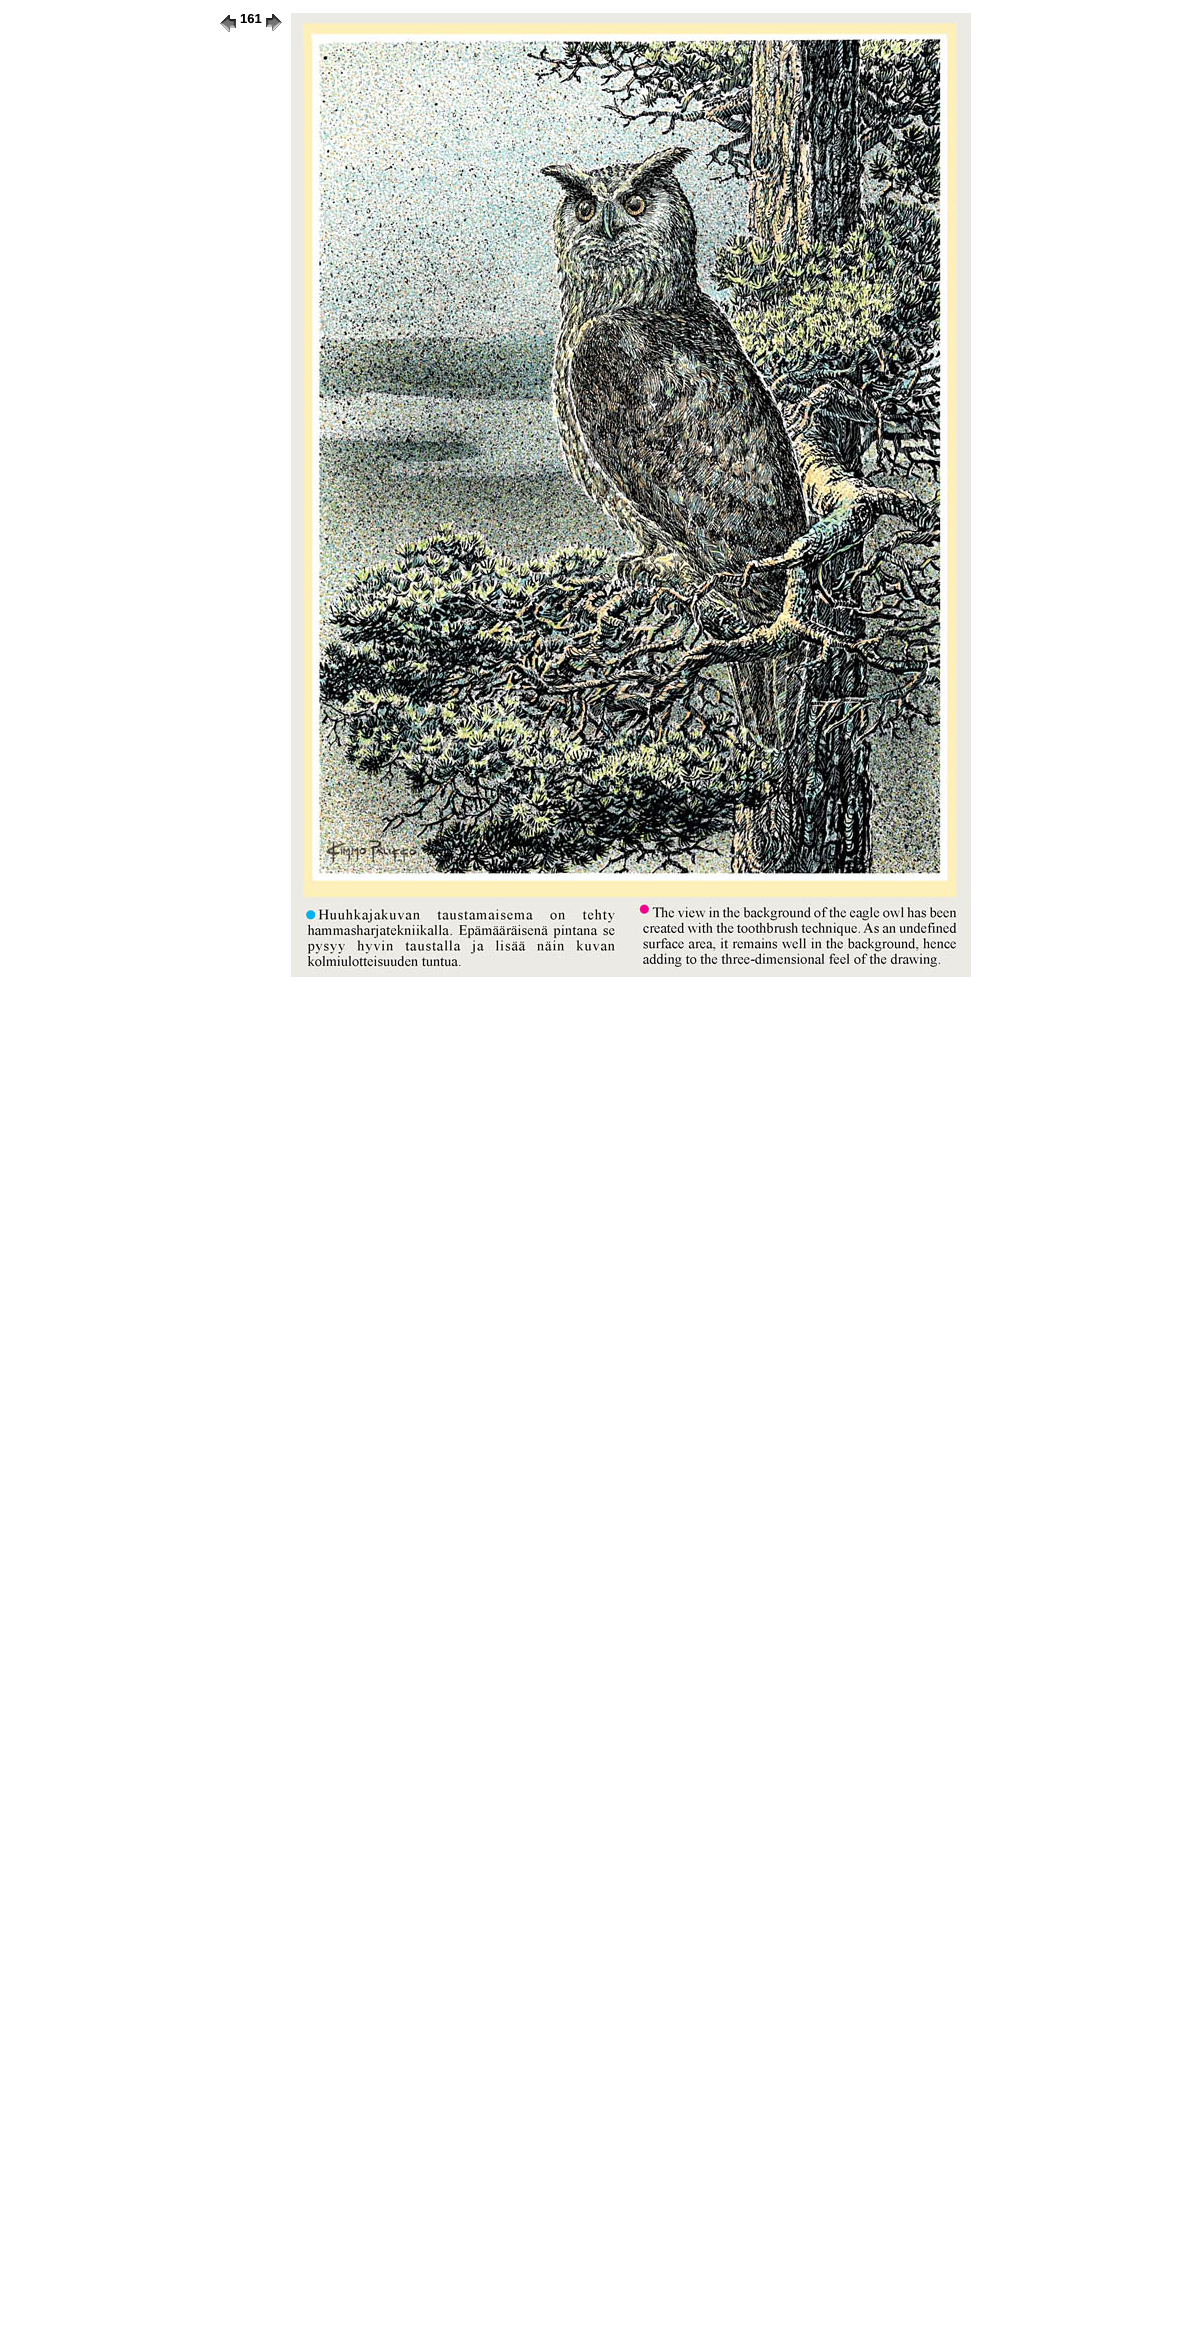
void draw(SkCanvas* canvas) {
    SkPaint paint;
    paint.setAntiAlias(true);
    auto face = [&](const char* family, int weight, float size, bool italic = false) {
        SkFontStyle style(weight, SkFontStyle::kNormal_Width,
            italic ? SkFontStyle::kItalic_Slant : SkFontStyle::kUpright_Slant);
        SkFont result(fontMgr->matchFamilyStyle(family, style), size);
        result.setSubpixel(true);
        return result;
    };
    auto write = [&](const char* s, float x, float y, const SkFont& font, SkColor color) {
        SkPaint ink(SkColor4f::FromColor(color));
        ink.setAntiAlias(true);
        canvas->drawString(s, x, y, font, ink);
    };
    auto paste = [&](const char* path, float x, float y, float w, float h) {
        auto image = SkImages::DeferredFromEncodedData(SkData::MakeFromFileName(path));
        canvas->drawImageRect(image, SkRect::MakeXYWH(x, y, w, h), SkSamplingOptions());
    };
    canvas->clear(SK_ColorWHITE);
    paste("pic1.png", 220, 15, 16, 17);
    auto kFont1 = face("Liberation Sans", 700, 13);
    write("161", 240, 23, kFont1, SK_ColorBLACK);
    paste("pic2.png", 266, 14, 16, 17);
    paste("pic3.png", 291, 13, 680, 964);
}
